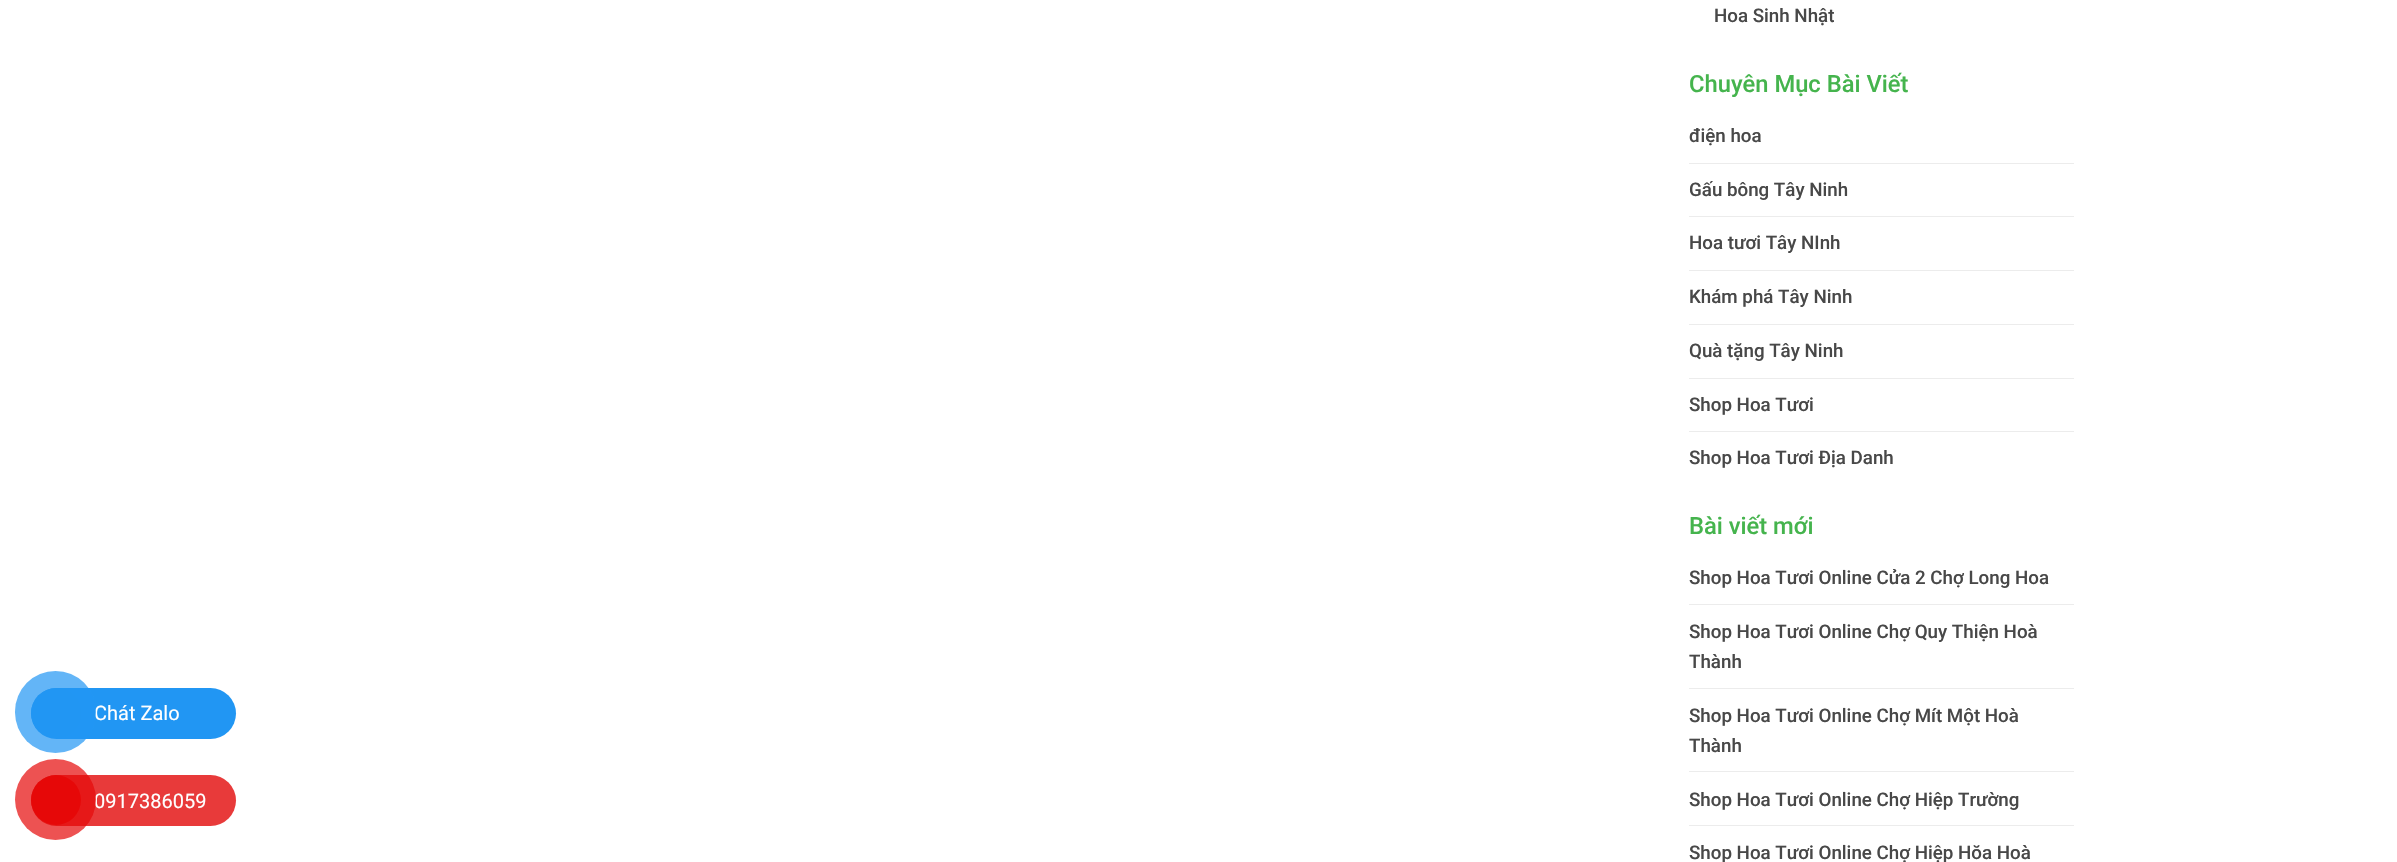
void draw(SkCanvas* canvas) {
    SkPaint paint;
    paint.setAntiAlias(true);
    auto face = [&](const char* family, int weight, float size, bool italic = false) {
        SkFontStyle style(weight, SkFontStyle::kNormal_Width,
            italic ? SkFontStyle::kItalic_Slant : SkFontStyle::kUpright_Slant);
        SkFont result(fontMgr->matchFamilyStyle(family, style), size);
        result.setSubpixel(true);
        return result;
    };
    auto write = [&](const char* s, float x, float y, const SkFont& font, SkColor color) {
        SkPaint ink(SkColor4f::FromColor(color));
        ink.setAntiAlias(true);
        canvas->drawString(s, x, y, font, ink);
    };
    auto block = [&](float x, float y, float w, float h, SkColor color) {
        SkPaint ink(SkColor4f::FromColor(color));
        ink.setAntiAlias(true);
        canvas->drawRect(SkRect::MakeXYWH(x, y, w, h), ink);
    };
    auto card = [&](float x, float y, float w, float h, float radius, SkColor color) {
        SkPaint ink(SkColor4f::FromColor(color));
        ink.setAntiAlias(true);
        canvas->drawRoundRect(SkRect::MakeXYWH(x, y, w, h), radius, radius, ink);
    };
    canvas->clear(SK_ColorWHITE);
    card(31, 688, 205, 51, 25.5f, SkColorSetRGB(33, 150, 243));
    auto kFont1 = face("Roboto", 400, 20);
    write("Chát Zalo", 94, 720, kFont1, SK_ColorWHITE);
    card(15, 671, 81, 82, 40.5f, SkColorSetARGB(179, 33, 150, 243));
    paint.setColor(SkColorSetRGB(33, 150, 243));
    canvas->drawCircle(56, 713, 25, paint);
    card(31, 775, 205, 51, 25.5f, SkColorSetRGB(232, 58, 58));
    write("0917386059", 94, 808, kFont1, SK_ColorWHITE);
    paint.setColor(SkColorSetARGB(179, 230, 8, 8));
    canvas->drawCircle(55.5f, 799.5f, 40.5f, paint);
    paint.setColor(SkColorSetRGB(230, 8, 8));
    canvas->drawCircle(56, 800, 25, paint);
    auto kFont2 = face("Roboto", 500, 18.75f);
    write("Hoa Sinh Nhật", 1714, 22, kFont2, SkColorSetRGB(72, 72, 72));
    auto kFont3 = face("Roboto", 500, 23.75f);
    write("Chuyên Mục Bài Viết", 1689, 92, kFont3, SkColorSetRGB(69, 180, 77));
    write("điện hoa", 1689, 142, kFont2, SkColorSetRGB(72, 72, 72));
    block(1689, 163, 385, 1, SkColorSetRGB(236, 236, 236));
    write("Gấu bông Tây Ninh", 1689, 196, kFont2, SkColorSetRGB(72, 72, 72));
    block(1689, 216, 385, 1, SkColorSetRGB(236, 236, 236));
    write("Hoa tươi Tây NInh", 1689, 249, kFont2, SkColorSetRGB(72, 72, 72));
    block(1689, 270, 385, 1, SkColorSetRGB(236, 236, 236));
    write("Khám phá Tây Ninh", 1689, 303, kFont2, SkColorSetRGB(72, 72, 72));
    block(1689, 324, 385, 1, SkColorSetRGB(236, 236, 236));
    write("Quà tặng Tây Ninh", 1689, 357, kFont2, SkColorSetRGB(72, 72, 72));
    block(1689, 378, 385, 1, SkColorSetRGB(236, 236, 236));
    write("Shop Hoa Tươi", 1689, 411, kFont2, SkColorSetRGB(72, 72, 72));
    block(1689, 431, 385, 1, SkColorSetRGB(236, 236, 236));
    write("Shop Hoa Tươi Địa Danh", 1689, 464, kFont2, SkColorSetRGB(72, 72, 72));
    write("Bài viết mới", 1689, 534, kFont3, SkColorSetRGB(69, 180, 77));
    write("Shop Hoa Tươi Online Cửa 2 Chợ Long Hoa", 1689, 584, kFont2, SkColorSetRGB(72, 72, 72));
    block(1689, 604, 385, 1, SkColorSetRGB(236, 236, 236));
    write("Shop Hoa Tươi Online Chợ Quy Thiện Hoà", 1689, 638, kFont2, SkColorSetRGB(72, 72, 72));
    write("Thành", 1689, 668, kFont2, SkColorSetRGB(72, 72, 72));
    block(1689, 688, 385, 1, SkColorSetRGB(236, 236, 236));
    write("Shop Hoa Tươi Online Chợ Mít Một Hoà", 1689, 722, kFont2, SkColorSetRGB(72, 72, 72));
    write("Thành", 1689, 752, kFont2, SkColorSetRGB(72, 72, 72));
    block(1689, 771, 385, 1, SkColorSetRGB(236, 236, 236));
    write("Shop Hoa Tươi Online Chợ Hiệp Trường", 1689, 806, kFont2, SkColorSetRGB(72, 72, 72));
    block(1689, 825, 385, 1, SkColorSetRGB(236, 236, 236));
    write("Shop Hoa Tươi Online Chợ Hiệp Hŏa Hoà", 1689, 859, kFont2, SkColorSetRGB(72, 72, 72));
}
